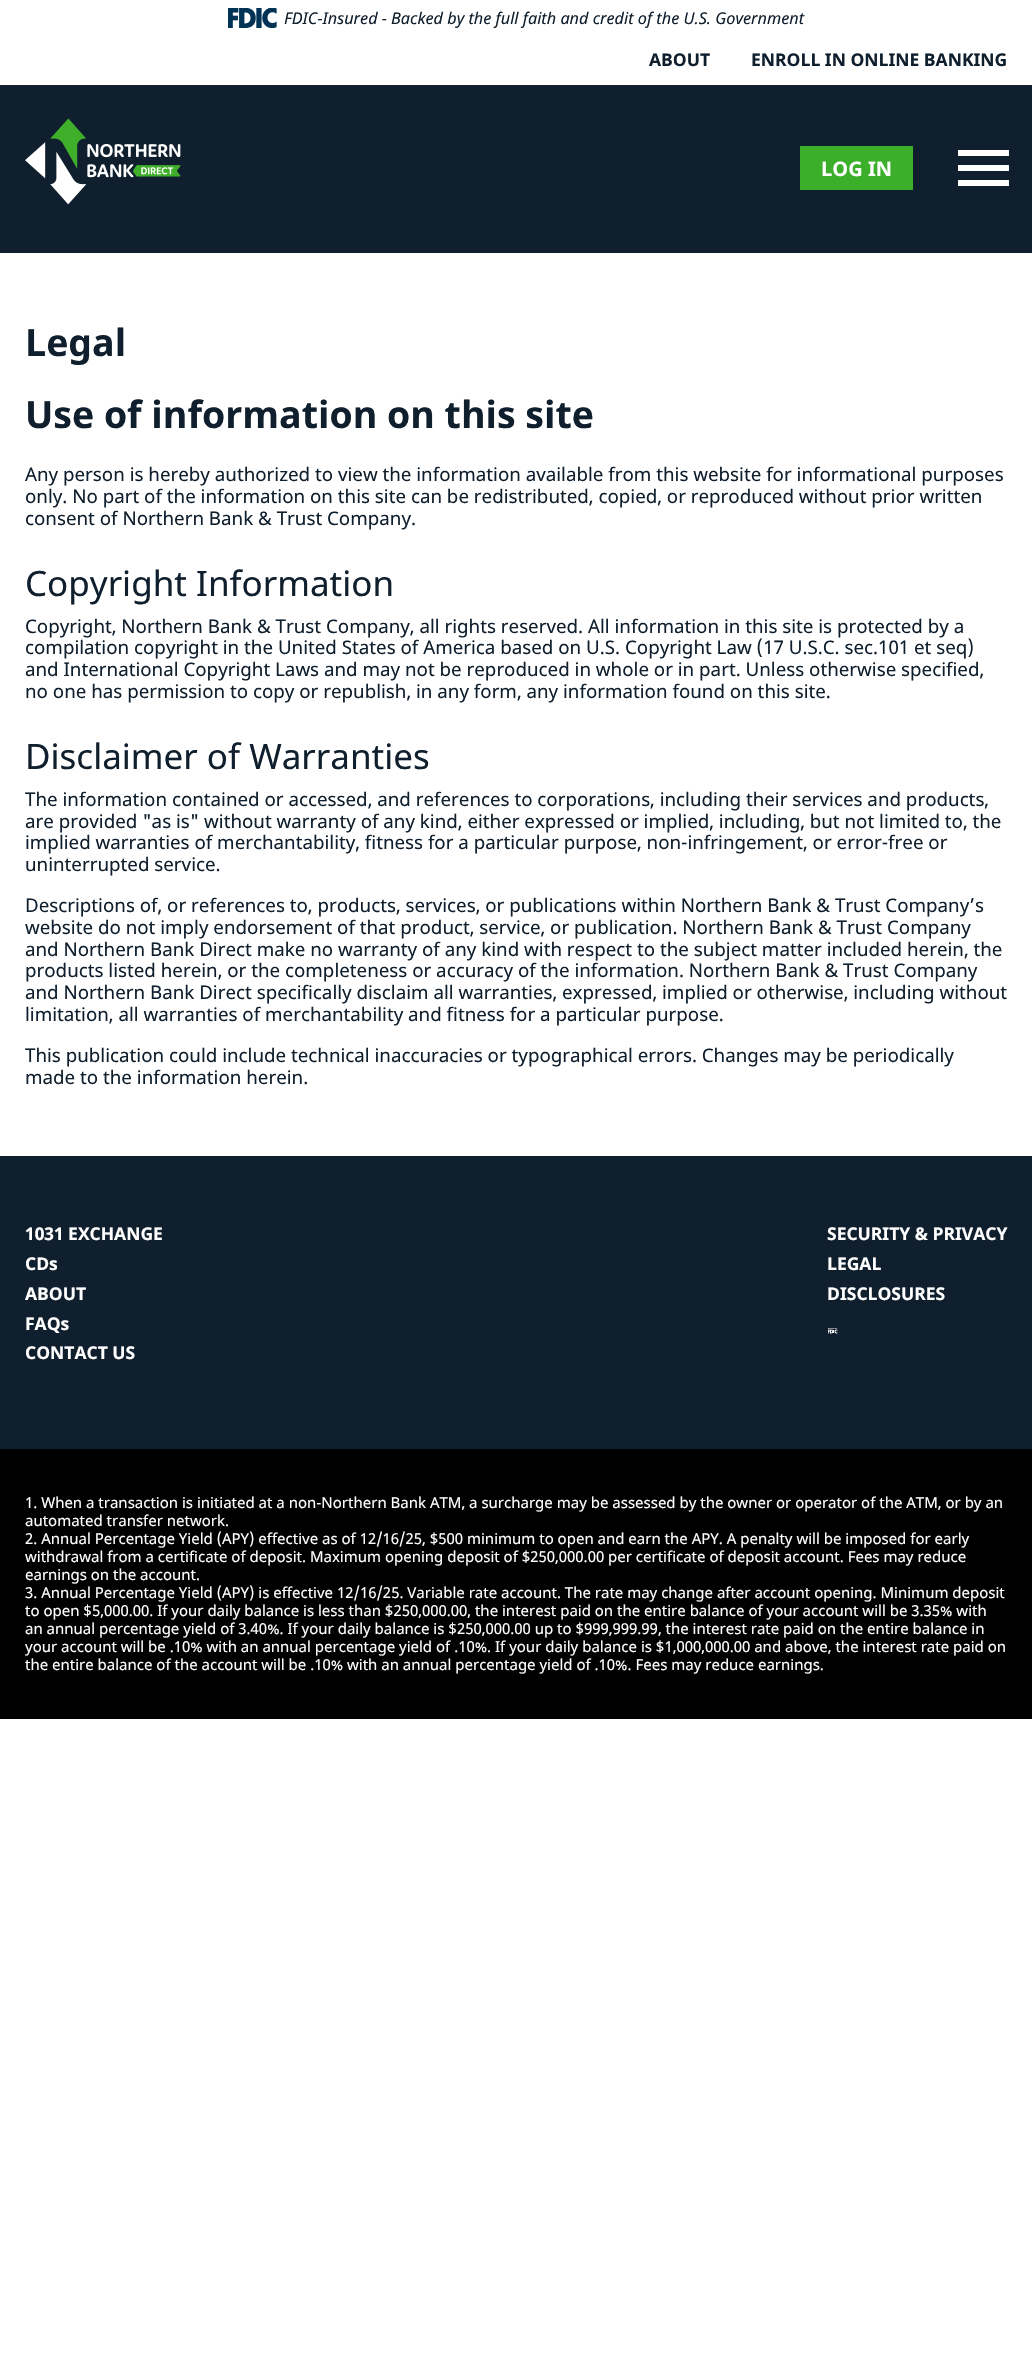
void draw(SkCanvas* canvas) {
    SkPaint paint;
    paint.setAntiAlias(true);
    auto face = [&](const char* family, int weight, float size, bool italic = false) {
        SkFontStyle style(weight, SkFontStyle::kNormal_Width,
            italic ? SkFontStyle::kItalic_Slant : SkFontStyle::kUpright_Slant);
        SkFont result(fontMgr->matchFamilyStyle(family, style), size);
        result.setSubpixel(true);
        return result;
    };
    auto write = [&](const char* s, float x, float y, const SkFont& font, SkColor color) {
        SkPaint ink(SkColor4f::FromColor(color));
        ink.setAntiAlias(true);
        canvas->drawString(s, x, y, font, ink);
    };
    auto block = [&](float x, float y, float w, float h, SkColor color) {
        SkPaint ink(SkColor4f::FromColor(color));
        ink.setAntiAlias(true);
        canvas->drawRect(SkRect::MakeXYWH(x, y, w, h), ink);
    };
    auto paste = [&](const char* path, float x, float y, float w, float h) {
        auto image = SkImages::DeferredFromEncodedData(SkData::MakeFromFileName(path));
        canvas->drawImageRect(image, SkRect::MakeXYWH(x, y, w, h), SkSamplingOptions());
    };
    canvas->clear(SK_ColorWHITE);
    paste("pic1.png", 228, 8, 49, 20);
    auto kFont1 = face("Noto Sans", 400, 16.25f, true);
    write("FDIC-Insured - Backed by the full faith and credit of the U.S. Government", 284, 24, kFont1, SkColorSetRGB(16, 31, 45));
    block(0, 85, 1032, 168, SkColorSetRGB(16, 31, 45));
    auto kFont2 = face("Noto Sans", 700, 17.5f);
    write("ABOUT", 649, 66, kFont2, SkColorSetRGB(16, 31, 45));
    write("ENROLL IN ONLINE BANKING", 751, 66, kFont2, SkColorSetRGB(16, 31, 45));
    paste("pic2.png", 25, 118, 156, 87);
    block(800, 146, 113, 44, SkColorSetRGB(59, 175, 41));
    auto kFont3 = face("Noto Sans", 700, 20);
    write("LOG IN", 821, 176, kFont3, SK_ColorWHITE);
    block(958, 150, 51, 6, SK_ColorWHITE);
    block(958, 165, 51, 6, SK_ColorWHITE);
    block(958, 180, 51, 6, SK_ColorWHITE);
    auto kFont4 = face("Noto Sans", 700, 37.5f);
    write("Legal", 25, 356, kFont4, SkColorSetRGB(16, 31, 45));
    write("Use of information on this site", 25, 428, kFont4, SkColorSetRGB(16, 31, 45));
    auto kFont5 = face("Noto Sans", 400, 18.75f);
    write("Any person is hereby authorized to view the information available from this website for informational purposes", 25, 481, kFont5, SkColorSetRGB(16, 31, 45));
    write("only. No part of the information on this site can be redistributed, copied, or reproduced without prior written", 25, 503, kFont5, SkColorSetRGB(16, 31, 45));
    write("consent of Northern Bank & Trust Company.", 25, 525, kFont5, SkColorSetRGB(16, 31, 45));
    auto kFont6 = face("Noto Sans", 400, 35);
    write("Copyright Information", 25, 596, kFont6, SkColorSetRGB(16, 31, 45));
    write("Copyright, Northern Bank & Trust Company, all rights reserved. All information in this site is protected by a", 25, 633, kFont5, SkColorSetRGB(16, 31, 45));
    write("compilation copyright in the United States of America based on U.S. Copyright Law (17 U.S.C. sec.101 et seq)", 25, 654, kFont5, SkColorSetRGB(16, 31, 45));
    write("and International Copyright Laws and may not be reproduced in whole or in part. Unless otherwise specified,", 25, 676, kFont5, SkColorSetRGB(16, 31, 45));
    write("no one has permission to copy or republish, in any form, any information found on this site.", 25, 698, kFont5, SkColorSetRGB(16, 31, 45));
    write("Disclaimer of Warranties", 25, 769, kFont6, SkColorSetRGB(16, 31, 45));
    write("The information contained or accessed, and references to corporations, including their services and products,", 25, 806, kFont5, SkColorSetRGB(16, 31, 45));
    write("are provided \"as is\" without warranty of any kind, either expressed or implied, including, but not limited to, the", 25, 828, kFont5, SkColorSetRGB(16, 31, 45));
    write("implied warranties of merchantability, fitness for a particular purpose, non-infringement, or error-free or", 25, 849, kFont5, SkColorSetRGB(16, 31, 45));
    write("uninterrupted service.", 25, 871, kFont5, SkColorSetRGB(16, 31, 45));
    write("Descriptions of, or references to, products, services, or publications within Northern Bank & Trust Company’s", 25, 912, kFont5, SkColorSetRGB(16, 31, 45));
    write("website do not imply endorsement of that product, service, or publication. Northern Bank & Trust Company", 25, 934, kFont5, SkColorSetRGB(16, 31, 45));
    write("and Northern Bank Direct make no warranty of any kind with respect to the subject matter included herein, the", 25, 956, kFont5, SkColorSetRGB(16, 31, 45));
    write("products listed herein, or the completeness or accuracy of the information. Northern Bank & Trust Company", 25, 977, kFont5, SkColorSetRGB(16, 31, 45));
    write("and Northern Bank Direct specifically disclaim all warranties, expressed, implied or otherwise, including without", 25, 999, kFont5, SkColorSetRGB(16, 31, 45));
    write("limitation, all warranties of merchantability and fitness for a particular purpose.", 25, 1021, kFont5, SkColorSetRGB(16, 31, 45));
    write("This publication could include technical inaccuracies or typographical errors. Changes may be periodically", 25, 1062, kFont5, SkColorSetRGB(16, 31, 45));
    write("made to the information herein.", 25, 1084, kFont5, SkColorSetRGB(16, 31, 45));
    block(0, 1156, 1032, 293, SkColorSetRGB(16, 31, 45));
    write("1031 EXCHANGE", 25, 1240, kFont2, SK_ColorWHITE);
    write("CDs", 25, 1270, kFont2, SK_ColorWHITE);
    write("ABOUT", 25, 1300, kFont2, SK_ColorWHITE);
    write("FAQs", 25, 1330, kFont2, SK_ColorWHITE);
    write("CONTACT US", 25, 1359, kFont2, SK_ColorWHITE);
    write("SECURITY & PRIVACY", 827, 1240, kFont2, SK_ColorWHITE);
    write("LEGAL", 827, 1270, kFont2, SK_ColorWHITE);
    write("DISCLOSURES", 827, 1300, kFont2, SK_ColorWHITE);
    paste("pic3.png", 828, 1328, 10, 6);
    block(0, 1449, 1032, 270, SK_ColorBLACK);
    auto kFont7 = face("Noto Sans", 400, 15);
    write("1. When a transaction is initiated at a non-Northern Bank ATM, a surcharge may be assessed by the owner or operator of the ATM, or by an", 25, 1508, kFont7, SK_ColorWHITE);
    write("automated transfer network.", 25, 1526, kFont7, SK_ColorWHITE);
    write("2. Annual Percentage Yield (APY) effective as of 12/16/25, $500 minimum to open and earn the APY. A penalty will be imposed for early", 25, 1544, kFont7, SK_ColorWHITE);
    write("withdrawal from a certificate of deposit. Maximum opening deposit of $250,000.00 per certificate of deposit account. Fees may reduce", 25, 1562, kFont7, SK_ColorWHITE);
    write("earnings on the account.", 25, 1580, kFont7, SK_ColorWHITE);
    write("3. Annual Percentage Yield (APY) is effective 12/16/25. Variable rate account. The rate may change after account opening. Minimum deposit", 25, 1598, kFont7, SK_ColorWHITE);
    write("to open $5,000.00. If your daily balance is less than $250,000.00, the interest paid on the entire balance of your account will be 3.35% with", 25, 1616, kFont7, SK_ColorWHITE);
    write("an annual percentage yield of 3.40%. If your daily balance is $250,000.00 up to $999,999.99, the interest rate paid on the entire balance in", 25, 1634, kFont7, SK_ColorWHITE);
    write("your account will be .10% with an annual percentage yield of .10%. If your daily balance is $1,000,000.00 and above, the interest rate paid on", 25, 1652, kFont7, SK_ColorWHITE);
    write("the entire balance of the account will be .10% with an annual percentage yield of .10%. Fees may reduce earnings.", 25, 1670, kFont7, SK_ColorWHITE);
}
